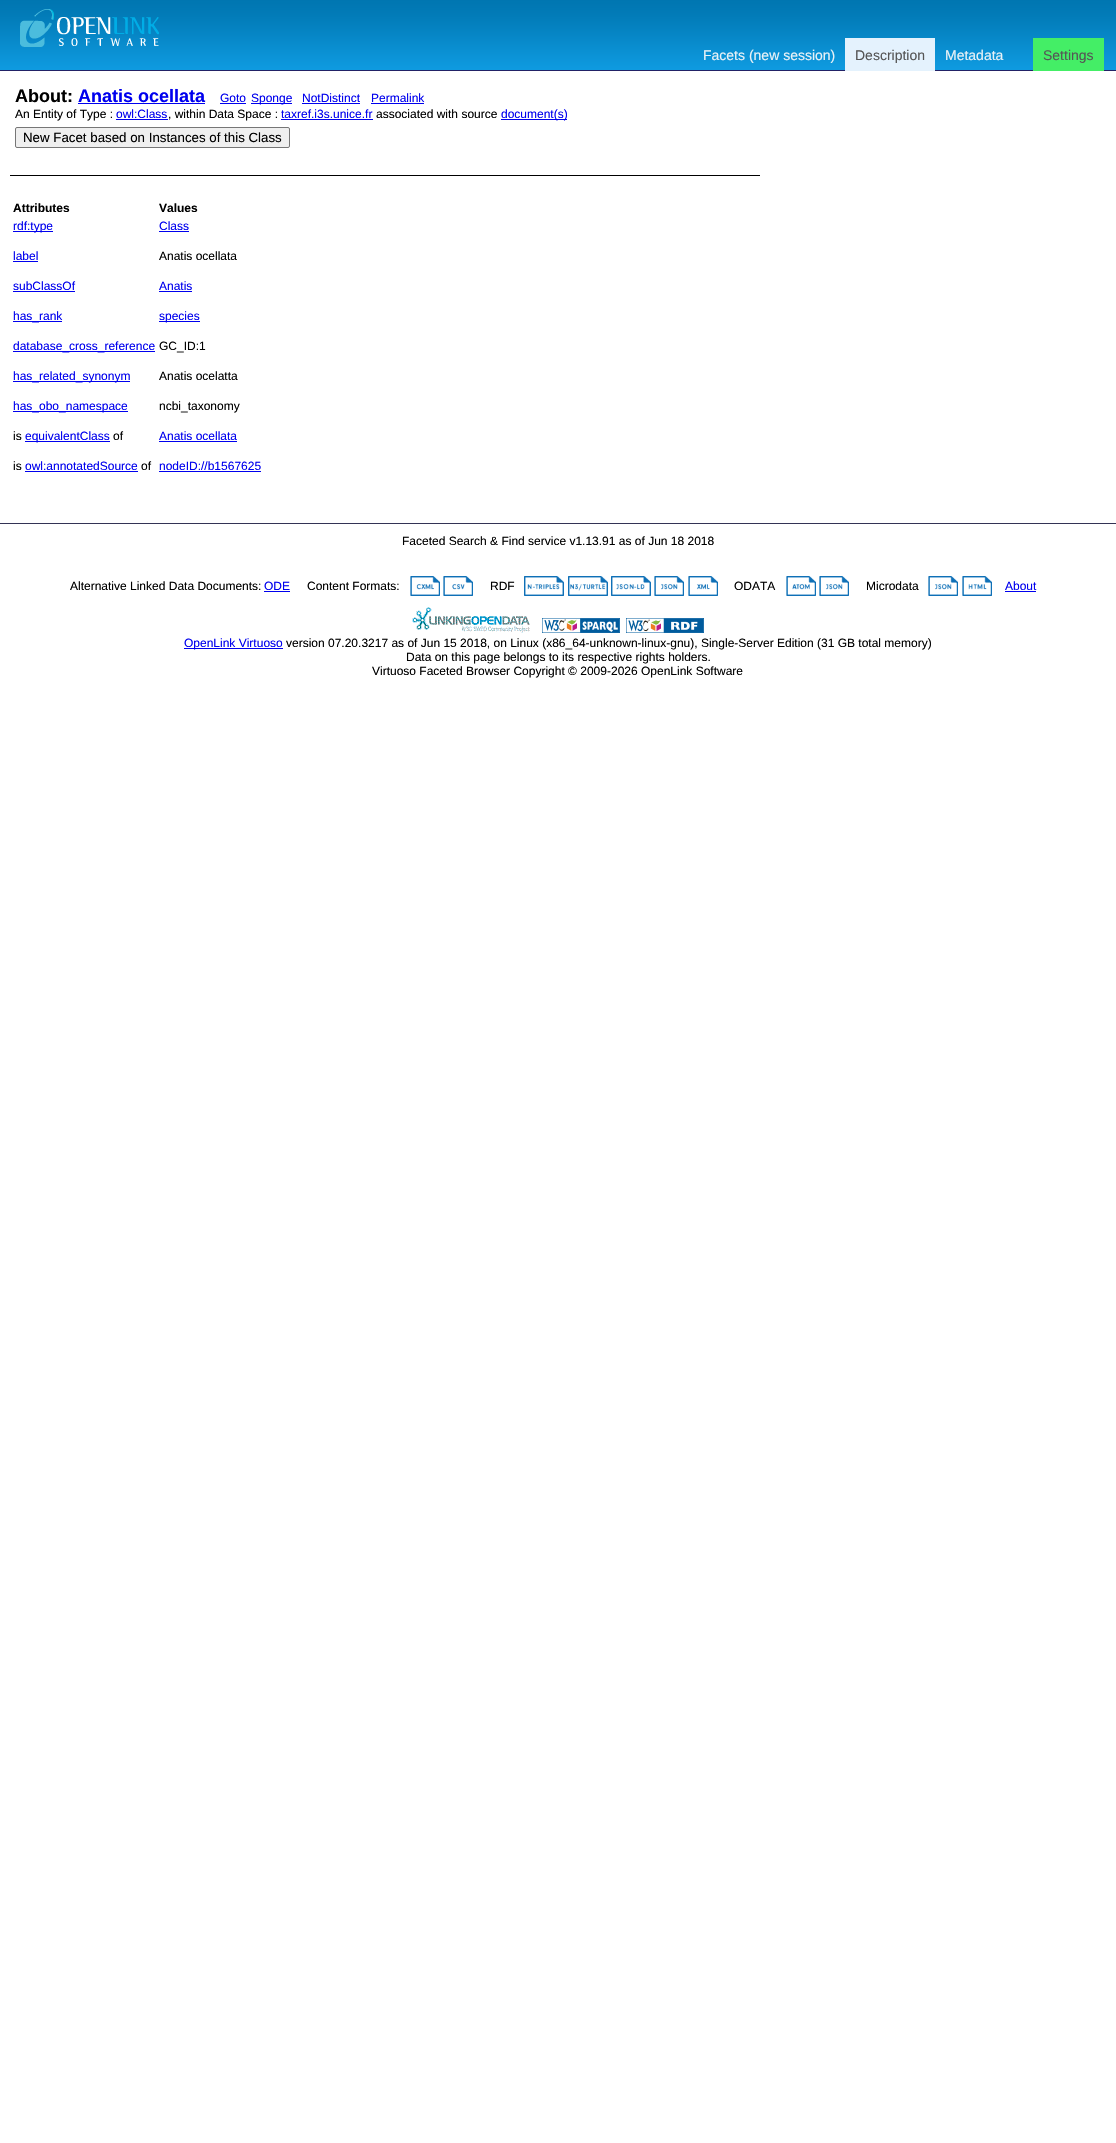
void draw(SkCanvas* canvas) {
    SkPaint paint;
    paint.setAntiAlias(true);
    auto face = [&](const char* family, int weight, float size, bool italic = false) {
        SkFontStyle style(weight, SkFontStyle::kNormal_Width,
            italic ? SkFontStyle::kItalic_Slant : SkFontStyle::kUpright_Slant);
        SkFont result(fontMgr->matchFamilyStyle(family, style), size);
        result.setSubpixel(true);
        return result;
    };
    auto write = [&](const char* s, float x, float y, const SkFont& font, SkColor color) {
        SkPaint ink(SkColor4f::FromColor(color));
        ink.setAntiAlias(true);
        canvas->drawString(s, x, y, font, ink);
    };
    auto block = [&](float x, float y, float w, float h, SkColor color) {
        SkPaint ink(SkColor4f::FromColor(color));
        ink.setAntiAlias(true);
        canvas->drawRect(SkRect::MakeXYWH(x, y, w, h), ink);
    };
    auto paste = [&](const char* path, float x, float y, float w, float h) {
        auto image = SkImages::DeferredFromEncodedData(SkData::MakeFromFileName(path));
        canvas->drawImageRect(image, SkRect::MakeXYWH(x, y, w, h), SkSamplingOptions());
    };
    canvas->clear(SK_ColorWHITE);
    paste("pic1.png", 0, 0, 1116, 70);
    block(0, 70, 1116, 1, SkColorSetRGB(34, 34, 102));
    paste("pic2.png", 20, 9, 139, 38);
    auto kFont1 = face("Liberation Sans", 400, 14);
    write("Facets (new session)", 703, 60, kFont1, SkColorSetRGB(233, 242, 247));
    block(845, 38, 90, 33, SkColorSetRGB(228, 242, 253));
    write("Description", 855, 60, kFont1, SkColorSetRGB(85, 85, 85));
    write("Metadata", 945, 60, kFont1, SkColorSetRGB(233, 242, 247));
    block(1033, 38, 71, 33, SkColorSetRGB(68, 238, 102));
    write("Settings", 1043, 60, kFont1, SkColorSetRGB(85, 85, 85));
    auto kFont2 = face("Liberation Sans", 700, 18);
    write("About:", 15, 102, kFont2, SK_ColorBLACK);
    write("Anatis ocellata", 78, 102, kFont2, SkColorSetRGB(0, 0, 238));
    block(78, 103, 127, 1, SkColorSetRGB(0, 0, 238));
    auto kFont3 = face("Liberation Sans", 400, 12);
    write("Goto", 220, 102, kFont3, SkColorSetRGB(0, 0, 238));
    block(220, 103, 26, 1, SkColorSetRGB(0, 0, 238));
    block(251, 103, 41, 1, SkColorSetRGB(0, 0, 238));
    write("Sponge", 251, 102, kFont3, SkColorSetRGB(0, 0, 238));
    write("NotDistinct", 302, 102, kFont3, SkColorSetRGB(0, 0, 238));
    block(302, 103, 58, 1, SkColorSetRGB(0, 0, 238));
    write("Permalink", 371, 102, kFont3, SkColorSetRGB(0, 0, 238));
    block(371, 103, 53, 1, SkColorSetRGB(0, 0, 238));
    write("An Entity of Type :", 15, 118, kFont3, SK_ColorBLACK);
    write("owl:Class", 116, 118, kFont3, SkColorSetRGB(0, 0, 238));
    block(116, 119, 52, 1, SkColorSetRGB(0, 0, 238));
    write(", within Data Space :", 168, 118, kFont3, SK_ColorBLACK);
    write("taxref.i3s.unice.fr", 281, 118, kFont3, SkColorSetRGB(0, 0, 238));
    block(281, 119, 92, 1, SkColorSetRGB(0, 0, 238));
    write("associated with source", 376, 118, kFont3, SK_ColorBLACK);
    block(501, 119, 66, 1, SkColorSetRGB(0, 0, 238));
    write("document(s)", 501, 118, kFont3, SkColorSetRGB(0, 0, 238));
    paint.setColor(SkColorSetRGB(239, 239, 239));
    canvas->drawRoundRect(SkRect::MakeXYWH(15.5f, 127.5f, 274, 20), 1.5f, 1.5f, paint);
    paint.setStyle(SkPaint::kStroke_Style);
    paint.setStrokeWidth(1);
    paint.setColor(SkColorSetRGB(118, 118, 118));
    canvas->drawRoundRect(SkRect::MakeXYWH(15.5f, 127.5f, 274, 20), 1.5f, 1.5f, paint);
    auto kFont4 = face("Liberation Sans", 400, 13.3f);
    write("New Facet based on Instances of this Class", 23, 142, kFont4, SK_ColorBLACK);
    block(10, 175, 750, 1, SK_ColorBLACK);
    auto kFont5 = face("Liberation Sans", 700, 12);
    write("Attributes", 13, 212, kFont5, SK_ColorBLACK);
    write("Values", 159, 212, kFont5, SK_ColorBLACK);
    block(13, 231, 40, 1, SkColorSetRGB(0, 0, 238));
    write("rdf:type", 13, 230, kFont3, SkColorSetRGB(0, 0, 238));
    write("Class", 159, 230, kFont3, SkColorSetRGB(0, 0, 238));
    block(159, 231, 30, 1, SkColorSetRGB(0, 0, 238));
    write("label", 13, 260, kFont3, SkColorSetRGB(0, 0, 238));
    block(13, 261, 25, 1, SkColorSetRGB(0, 0, 238));
    write("Anatis ocellata", 159, 260, kFont3, SK_ColorBLACK);
    write("subClassOf", 13, 290, kFont3, SkColorSetRGB(0, 0, 238));
    block(13, 291, 62, 1, SkColorSetRGB(0, 0, 238));
    write("Anatis", 159, 290, kFont3, SkColorSetRGB(0, 0, 238));
    block(159, 291, 33, 1, SkColorSetRGB(0, 0, 238));
    block(13, 321, 49, 1, SkColorSetRGB(0, 0, 238));
    write("has_rank", 13, 320, kFont3, SkColorSetRGB(0, 0, 238));
    block(159, 321, 41, 1, SkColorSetRGB(0, 0, 238));
    write("species", 159, 320, kFont3, SkColorSetRGB(0, 0, 238));
    block(13, 351, 142, 1, SkColorSetRGB(0, 0, 238));
    write("database_cross_reference", 13, 350, kFont3, SkColorSetRGB(0, 0, 238));
    write("GC_ID:1", 159, 350, kFont3, SK_ColorBLACK);
    block(13, 381, 117, 1, SkColorSetRGB(0, 0, 238));
    write("has_related_synonym", 13, 380, kFont3, SkColorSetRGB(0, 0, 238));
    write("Anatis ocelatta", 159, 380, kFont3, SK_ColorBLACK);
    block(13, 411, 115, 1, SkColorSetRGB(0, 0, 238));
    write("has_obo_namespace", 13, 410, kFont3, SkColorSetRGB(0, 0, 238));
    write("ncbi_taxonomy", 159, 410, kFont3, SK_ColorBLACK);
    write("is", 13, 440, kFont3, SK_ColorBLACK);
    block(25, 441, 85, 1, SkColorSetRGB(0, 0, 238));
    write("equivalentClass", 25, 440, kFont3, SkColorSetRGB(0, 0, 238));
    write("of", 113, 440, kFont3, SK_ColorBLACK);
    write("Anatis ocellata", 159, 440, kFont3, SkColorSetRGB(0, 0, 238));
    block(159, 441, 78, 1, SkColorSetRGB(0, 0, 238));
    write("is", 13, 470, kFont3, SK_ColorBLACK);
    write("owl:annotatedSource", 25, 470, kFont3, SkColorSetRGB(0, 0, 238));
    block(25, 471, 113, 1, SkColorSetRGB(0, 0, 238));
    write("of", 141, 470, kFont3, SK_ColorBLACK);
    write("nodeID://b1567625", 159, 470, kFont3, SkColorSetRGB(0, 0, 238));
    block(159, 471, 102, 1, SkColorSetRGB(0, 0, 238));
    block(0, 523, 1116, 1, SkColorSetRGB(51, 51, 85));
    write("Faceted Search & Find service v1.13.91 as of Jun 18 2018", 402, 545, kFont3, SK_ColorBLACK);
    write("Alternative Linked Data Documents:", 70, 590, kFont3, SK_ColorBLACK);
    write("ODE", 264, 590, kFont3, SkColorSetRGB(0, 0, 238));
    block(264, 591, 26, 1, SkColorSetRGB(0, 0, 238));
    write("Content Formats:", 307, 590, kFont3, SK_ColorBLACK);
    paste("pic3.png", 410, 576, 30, 20);
    paste("pic4.png", 443, 576, 30, 20);
    write("RDF", 490, 590, kFont3, SK_ColorBLACK);
    paste("pic5.png", 524, 576, 40, 20);
    paste("pic6.png", 568, 576, 40, 20);
    paste("pic7.png", 611, 576, 40, 20);
    paste("pic8.png", 654, 576, 30, 20);
    paste("pic9.png", 688, 576, 30, 20);
    write("ODATA", 734, 590, kFont3, SK_ColorBLACK);
    paste("pic10.png", 786, 576, 30, 20);
    paste("pic8.png", 819, 576, 30, 20);
    write("Microdata", 866, 590, kFont3, SK_ColorBLACK);
    paste("pic8.png", 928, 576, 30, 20);
    paste("pic11.png", 962, 576, 30, 20);
    write("About", 1005, 590, kFont3, SkColorSetRGB(0, 0, 238));
    block(1005, 591, 31, 1, SkColorSetRGB(0, 0, 238));
    paste("pic12.png", 412, 607, 118, 26);
    paste("pic13.png", 542, 618, 78, 15);
    paste("pic14.png", 626, 618, 78, 15);
    block(184, 648, 99, 1, SkColorSetRGB(0, 0, 238));
    write("OpenLink Virtuoso", 184, 647, kFont3, SkColorSetRGB(0, 0, 238));
    write("version 07.20.3217 as of Jun 15 2018, on Linux (x86_64-unknown-linux-gnu), Single-Server Edition (31 GB total memory)", 286, 647, kFont3, SK_ColorBLACK);
    write("Data on this page belongs to its respective rights holders.", 406, 661, kFont3, SK_ColorBLACK);
    write("Virtuoso Faceted Browser Copyright © 2009-2026 OpenLink Software", 372, 675, kFont3, SK_ColorBLACK);
}
